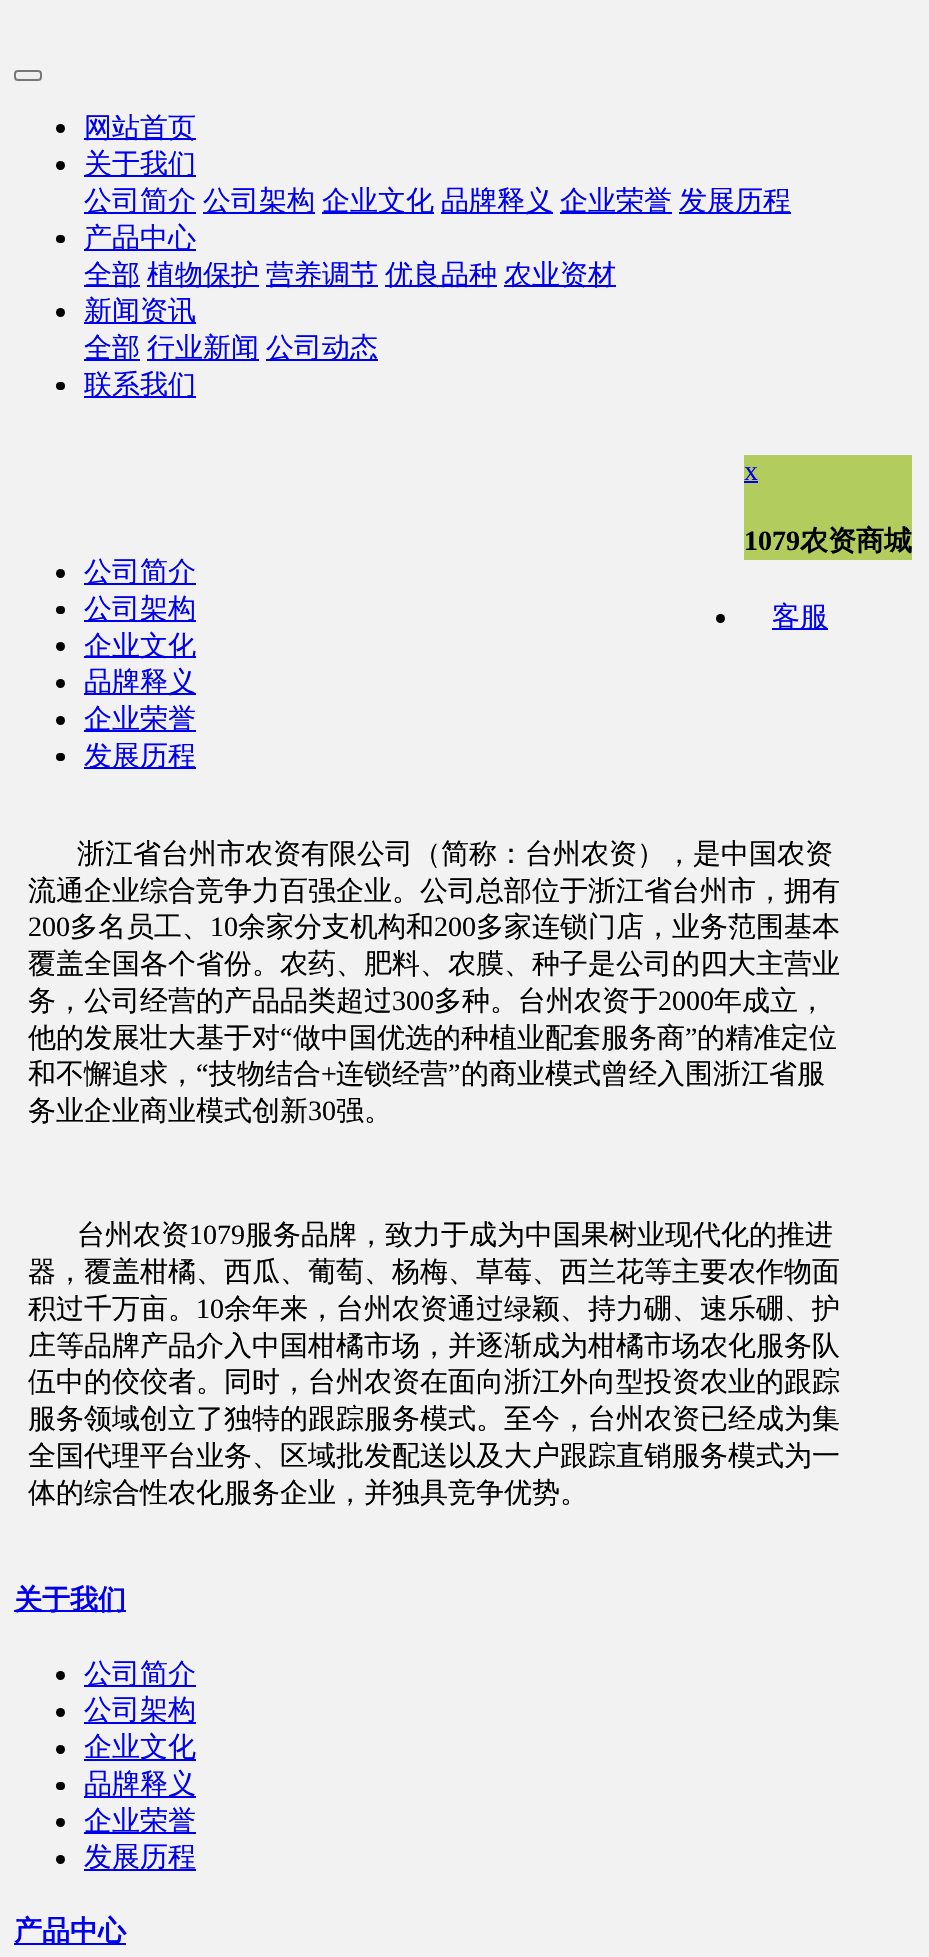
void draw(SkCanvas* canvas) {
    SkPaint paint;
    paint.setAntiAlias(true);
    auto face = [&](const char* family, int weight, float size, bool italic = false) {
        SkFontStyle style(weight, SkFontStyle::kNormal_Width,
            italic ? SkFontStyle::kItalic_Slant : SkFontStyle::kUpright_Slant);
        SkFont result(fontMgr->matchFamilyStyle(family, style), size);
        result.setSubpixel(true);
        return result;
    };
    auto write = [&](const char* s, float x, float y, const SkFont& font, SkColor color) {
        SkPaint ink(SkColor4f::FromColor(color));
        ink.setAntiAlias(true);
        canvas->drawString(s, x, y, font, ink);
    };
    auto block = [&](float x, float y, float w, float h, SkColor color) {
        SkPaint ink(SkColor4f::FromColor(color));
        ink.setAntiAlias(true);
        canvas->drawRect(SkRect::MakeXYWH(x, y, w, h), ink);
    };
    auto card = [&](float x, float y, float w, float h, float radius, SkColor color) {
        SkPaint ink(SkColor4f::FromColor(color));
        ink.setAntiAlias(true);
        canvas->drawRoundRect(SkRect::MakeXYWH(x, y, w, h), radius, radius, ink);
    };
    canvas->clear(SkColorSetRGB(242, 242, 242));
    paint.setColor(SkColorSetRGB(239, 239, 239));
    canvas->drawRoundRect(SkRect::MakeXYWH(15, 71, 26, 9), 3, 3, paint);
    paint.setStyle(SkPaint::kStroke_Style);
    paint.setStrokeWidth(2);
    paint.setColor(SkColorSetRGB(118, 118, 118));
    canvas->drawRoundRect(SkRect::MakeXYWH(15, 71, 26, 9), 3, 3, paint);
    paint.setStyle(SkPaint::kFill_Style);
    paint.setColor(SK_ColorBLACK);
    canvas->drawCircle(60.5f, 128.5f, 4.5f, paint);
    block(84, 138, 112, 2, SkColorSetRGB(0, 0, 238));
    auto kFont1 = face("WenQuanYi Zen Hei", 500, 28);
    write("网站首页", 84, 137, kFont1, SkColorSetRGB(0, 0, 238));
    canvas->drawCircle(60.5f, 165.5f, 4.5f, paint);
    block(84, 175, 112, 2, SkColorSetRGB(0, 0, 238));
    write("关于我们", 84, 173, kFont1, SkColorSetRGB(0, 0, 238));
    block(84, 212, 112, 2, SkColorSetRGB(0, 0, 238));
    write("公司简介", 84, 210, kFont1, SkColorSetRGB(0, 0, 238));
    block(203, 212, 112, 2, SkColorSetRGB(0, 0, 238));
    write("公司架构", 203, 210, kFont1, SkColorSetRGB(0, 0, 238));
    block(322, 212, 112, 2, SkColorSetRGB(0, 0, 238));
    write("企业文化", 322, 210, kFont1, SkColorSetRGB(0, 0, 238));
    block(441, 212, 112, 2, SkColorSetRGB(0, 0, 238));
    write("品牌释义", 441, 210, kFont1, SkColorSetRGB(0, 0, 238));
    block(560, 212, 112, 2, SkColorSetRGB(0, 0, 238));
    write("企业荣誉", 560, 210, kFont1, SkColorSetRGB(0, 0, 238));
    block(679, 212, 112, 2, SkColorSetRGB(0, 0, 238));
    write("发展历程", 679, 210, kFont1, SkColorSetRGB(0, 0, 238));
    card(56, 235, 9, 8, 4, SK_ColorBLACK);
    block(84, 249, 112, 2, SkColorSetRGB(0, 0, 238));
    write("产品中心", 84, 247, kFont1, SkColorSetRGB(0, 0, 238));
    block(84, 285, 56, 2, SkColorSetRGB(0, 0, 238));
    write("全部", 84, 284, kFont1, SkColorSetRGB(0, 0, 238));
    block(147, 285, 112, 2, SkColorSetRGB(0, 0, 238));
    write("植物保护", 147, 284, kFont1, SkColorSetRGB(0, 0, 238));
    block(266, 285, 112, 2, SkColorSetRGB(0, 0, 238));
    write("营养调节", 266, 284, kFont1, SkColorSetRGB(0, 0, 238));
    block(385, 285, 112, 2, SkColorSetRGB(0, 0, 238));
    write("优良品种", 385, 284, kFont1, SkColorSetRGB(0, 0, 238));
    block(504, 285, 112, 2, SkColorSetRGB(0, 0, 238));
    write("农业资材", 504, 284, kFont1, SkColorSetRGB(0, 0, 238));
    canvas->drawCircle(60.5f, 312.5f, 4.5f, paint);
    block(84, 322, 112, 2, SkColorSetRGB(0, 0, 238));
    write("新闻资讯", 84, 320, kFont1, SkColorSetRGB(0, 0, 238));
    block(84, 359, 56, 2, SkColorSetRGB(0, 0, 238));
    write("全部", 84, 357, kFont1, SkColorSetRGB(0, 0, 238));
    block(147, 359, 112, 2, SkColorSetRGB(0, 0, 238));
    write("行业新闻", 147, 357, kFont1, SkColorSetRGB(0, 0, 238));
    block(266, 359, 112, 2, SkColorSetRGB(0, 0, 238));
    write("公司动态", 266, 357, kFont1, SkColorSetRGB(0, 0, 238));
    card(56, 382, 9, 8, 4, SK_ColorBLACK);
    block(84, 396, 112, 2, SkColorSetRGB(0, 0, 238));
    write("联系我们", 84, 394, kFont1, SkColorSetRGB(0, 0, 238));
    canvas->drawCircle(60.5f, 573.5f, 4.5f, paint);
    block(84, 583, 112, 2, SkColorSetRGB(0, 0, 238));
    write("公司简介", 84, 581, kFont1, SkColorSetRGB(0, 0, 238));
    card(56, 606, 9, 8, 4, SK_ColorBLACK);
    block(84, 620, 112, 2, SkColorSetRGB(0, 0, 238));
    write("公司架构", 84, 618, kFont1, SkColorSetRGB(0, 0, 238));
    canvas->drawCircle(60.5f, 646.5f, 4.5f, paint);
    block(84, 656, 112, 2, SkColorSetRGB(0, 0, 238));
    write("企业文化", 84, 655, kFont1, SkColorSetRGB(0, 0, 238));
    canvas->drawCircle(60.5f, 683.5f, 4.5f, paint);
    block(84, 693, 112, 2, SkColorSetRGB(0, 0, 238));
    write("品牌释义", 84, 691, kFont1, SkColorSetRGB(0, 0, 238));
    canvas->drawCircle(60.5f, 720.5f, 4.5f, paint);
    block(84, 730, 112, 2, SkColorSetRGB(0, 0, 238));
    write("企业荣誉", 84, 728, kFont1, SkColorSetRGB(0, 0, 238));
    card(56, 753, 9, 8, 4, SK_ColorBLACK);
    block(84, 767, 112, 2, SkColorSetRGB(0, 0, 238));
    write("发展历程", 84, 765, kFont1, SkColorSetRGB(0, 0, 238));
    block(744, 455, 168, 105, SkColorSetRGB(178, 204, 94));
    auto kFont2 = face("Liberation Serif", 400, 28);
    write("x", 744, 480, kFont2, SkColorSetRGB(0, 0, 238));
    block(744, 481, 14, 2, SkColorSetRGB(0, 0, 238));
    auto kFont3 = face("Liberation Serif", 700, 28);
    write("1079", 744, 550, kFont3, SK_ColorBLACK);
    auto kFont4 = face("WenQuanYi Zen Hei", 700, 28);
    write("农资商城", 800, 550, kFont4, SK_ColorBLACK);
    canvas->drawCircle(720.5f, 618.5f, 4.5f, paint);
    block(772, 628, 56, 2, SkColorSetRGB(0, 0, 238));
    write("客服", 772, 626, kFont1, SkColorSetRGB(0, 0, 238));
    write("浙江省台州市农资有限公司（简称：台州农资），是中国农资", 77, 863, kFont1, SK_ColorBLACK);
    write("流通企业综合竞争力百强企业。公司总部位于浙江省台州市，拥有", 28, 900, kFont1, SK_ColorBLACK);
    write("200", 28, 936, kFont2, SK_ColorBLACK);
    write("多名员工、", 70, 936, kFont1, SK_ColorBLACK);
    write("10", 210, 936, kFont2, SK_ColorBLACK);
    write("余家分支机构和", 238, 936, kFont1, SK_ColorBLACK);
    write("200", 434, 936, kFont2, SK_ColorBLACK);
    write("多家连锁门店，业务范围基本", 476, 936, kFont1, SK_ColorBLACK);
    write("覆盖全国各个省份。农药、肥料、农膜、种子是公司的四大主营业", 28, 973, kFont1, SK_ColorBLACK);
    write("务，公司经营的产品品类超过", 28, 1010, kFont1, SK_ColorBLACK);
    write("300", 392, 1010, kFont2, SK_ColorBLACK);
    write("多种。台州农资于", 434, 1010, kFont1, SK_ColorBLACK);
    write("2000", 658, 1010, kFont2, SK_ColorBLACK);
    write("年成立，", 714, 1010, kFont1, SK_ColorBLACK);
    write("他的发展壮大基于对", 28, 1047, kFont1, SK_ColorBLACK);
    write("“", 280, 1047, kFont2, SK_ColorBLACK);
    write("做中国优选的种植业配套服务商", 293, 1047, kFont1, SK_ColorBLACK);
    write("”", 685, 1047, kFont2, SK_ColorBLACK);
    write("的精准定位", 697, 1047, kFont1, SK_ColorBLACK);
    write("和不懈追求，", 28, 1083, kFont1, SK_ColorBLACK);
    write("“", 196, 1083, kFont2, SK_ColorBLACK);
    write("技物结合", 209, 1083, kFont1, SK_ColorBLACK);
    write("+", 321, 1083, kFont2, SK_ColorBLACK);
    write("连锁经营", 336, 1083, kFont1, SK_ColorBLACK);
    write("”", 448, 1083, kFont2, SK_ColorBLACK);
    write("的商业模式曾经入围浙江省服", 461, 1083, kFont1, SK_ColorBLACK);
    write("务业企业商业模式创新", 28, 1120, kFont1, SK_ColorBLACK);
    write("30", 308, 1120, kFont2, SK_ColorBLACK);
    write("强。", 336, 1120, kFont1, SK_ColorBLACK);
    write("台州农资", 77, 1244, kFont1, SK_ColorBLACK);
    write("1079", 189, 1244, kFont2, SK_ColorBLACK);
    write("服务品牌，致力于成为中国果树业现代化的推进", 245, 1244, kFont1, SK_ColorBLACK);
    write("器，覆盖柑橘、西瓜、葡萄、杨梅、草莓、西兰花等主要农作物面", 28, 1281, kFont1, SK_ColorBLACK);
    write("积过千万亩。", 28, 1318, kFont1, SK_ColorBLACK);
    write("10", 196, 1318, kFont2, SK_ColorBLACK);
    write("余年来，台州农资通过绿颖、持力硼、速乐硼、护", 224, 1318, kFont1, SK_ColorBLACK);
    write("庄等品牌产品介入中国柑橘市场，并逐渐成为柑橘市场农化服务队", 28, 1355, kFont1, SK_ColorBLACK);
    write("伍中的佼佼者。同时，台州农资在面向浙江外向型投资农业的跟踪", 28, 1391, kFont1, SK_ColorBLACK);
    write("服务领域创立了独特的跟踪服务模式。至今，台州农资已经成为集", 28, 1428, kFont1, SK_ColorBLACK);
    write("全国代理平台业务、区域批发配送以及大户跟踪直销服务模式为一", 28, 1465, kFont1, SK_ColorBLACK);
    write("体的综合性农化服务企业，并独具竞争优势。", 28, 1502, kFont1, SK_ColorBLACK);
    block(14, 1610, 112, 2, SkColorSetRGB(0, 0, 238));
    write("关于我们", 14, 1609, kFont4, SkColorSetRGB(0, 0, 238));
    canvas->drawCircle(60.5f, 1675.5f, 4.5f, paint);
    block(84, 1685, 112, 2, SkColorSetRGB(0, 0, 238));
    write("公司简介", 84, 1683, kFont1, SkColorSetRGB(0, 0, 238));
    canvas->drawCircle(60.5f, 1712.5f, 4.5f, paint);
    block(84, 1722, 112, 2, SkColorSetRGB(0, 0, 238));
    write("公司架构", 84, 1719, kFont1, SkColorSetRGB(0, 0, 238));
    canvas->drawCircle(60.5f, 1749.5f, 4.5f, paint);
    block(84, 1759, 112, 2, SkColorSetRGB(0, 0, 238));
    write("企业文化", 84, 1756, kFont1, SkColorSetRGB(0, 0, 238));
    card(56, 1782, 9, 8, 4, SK_ColorBLACK);
    block(84, 1796, 112, 2, SkColorSetRGB(0, 0, 238));
    write("品牌释义", 84, 1793, kFont1, SkColorSetRGB(0, 0, 238));
    canvas->drawCircle(60.5f, 1822.5f, 4.5f, paint);
    block(84, 1832, 112, 2, SkColorSetRGB(0, 0, 238));
    write("企业荣誉", 84, 1830, kFont1, SkColorSetRGB(0, 0, 238));
    canvas->drawCircle(60.5f, 1859.5f, 4.5f, paint);
    block(84, 1869, 112, 2, SkColorSetRGB(0, 0, 238));
    write("发展历程", 84, 1866, kFont1, SkColorSetRGB(0, 0, 238));
    block(14, 1943, 112, 2, SkColorSetRGB(0, 0, 238));
    write("产品中心", 14, 1940, kFont4, SkColorSetRGB(0, 0, 238));
}
